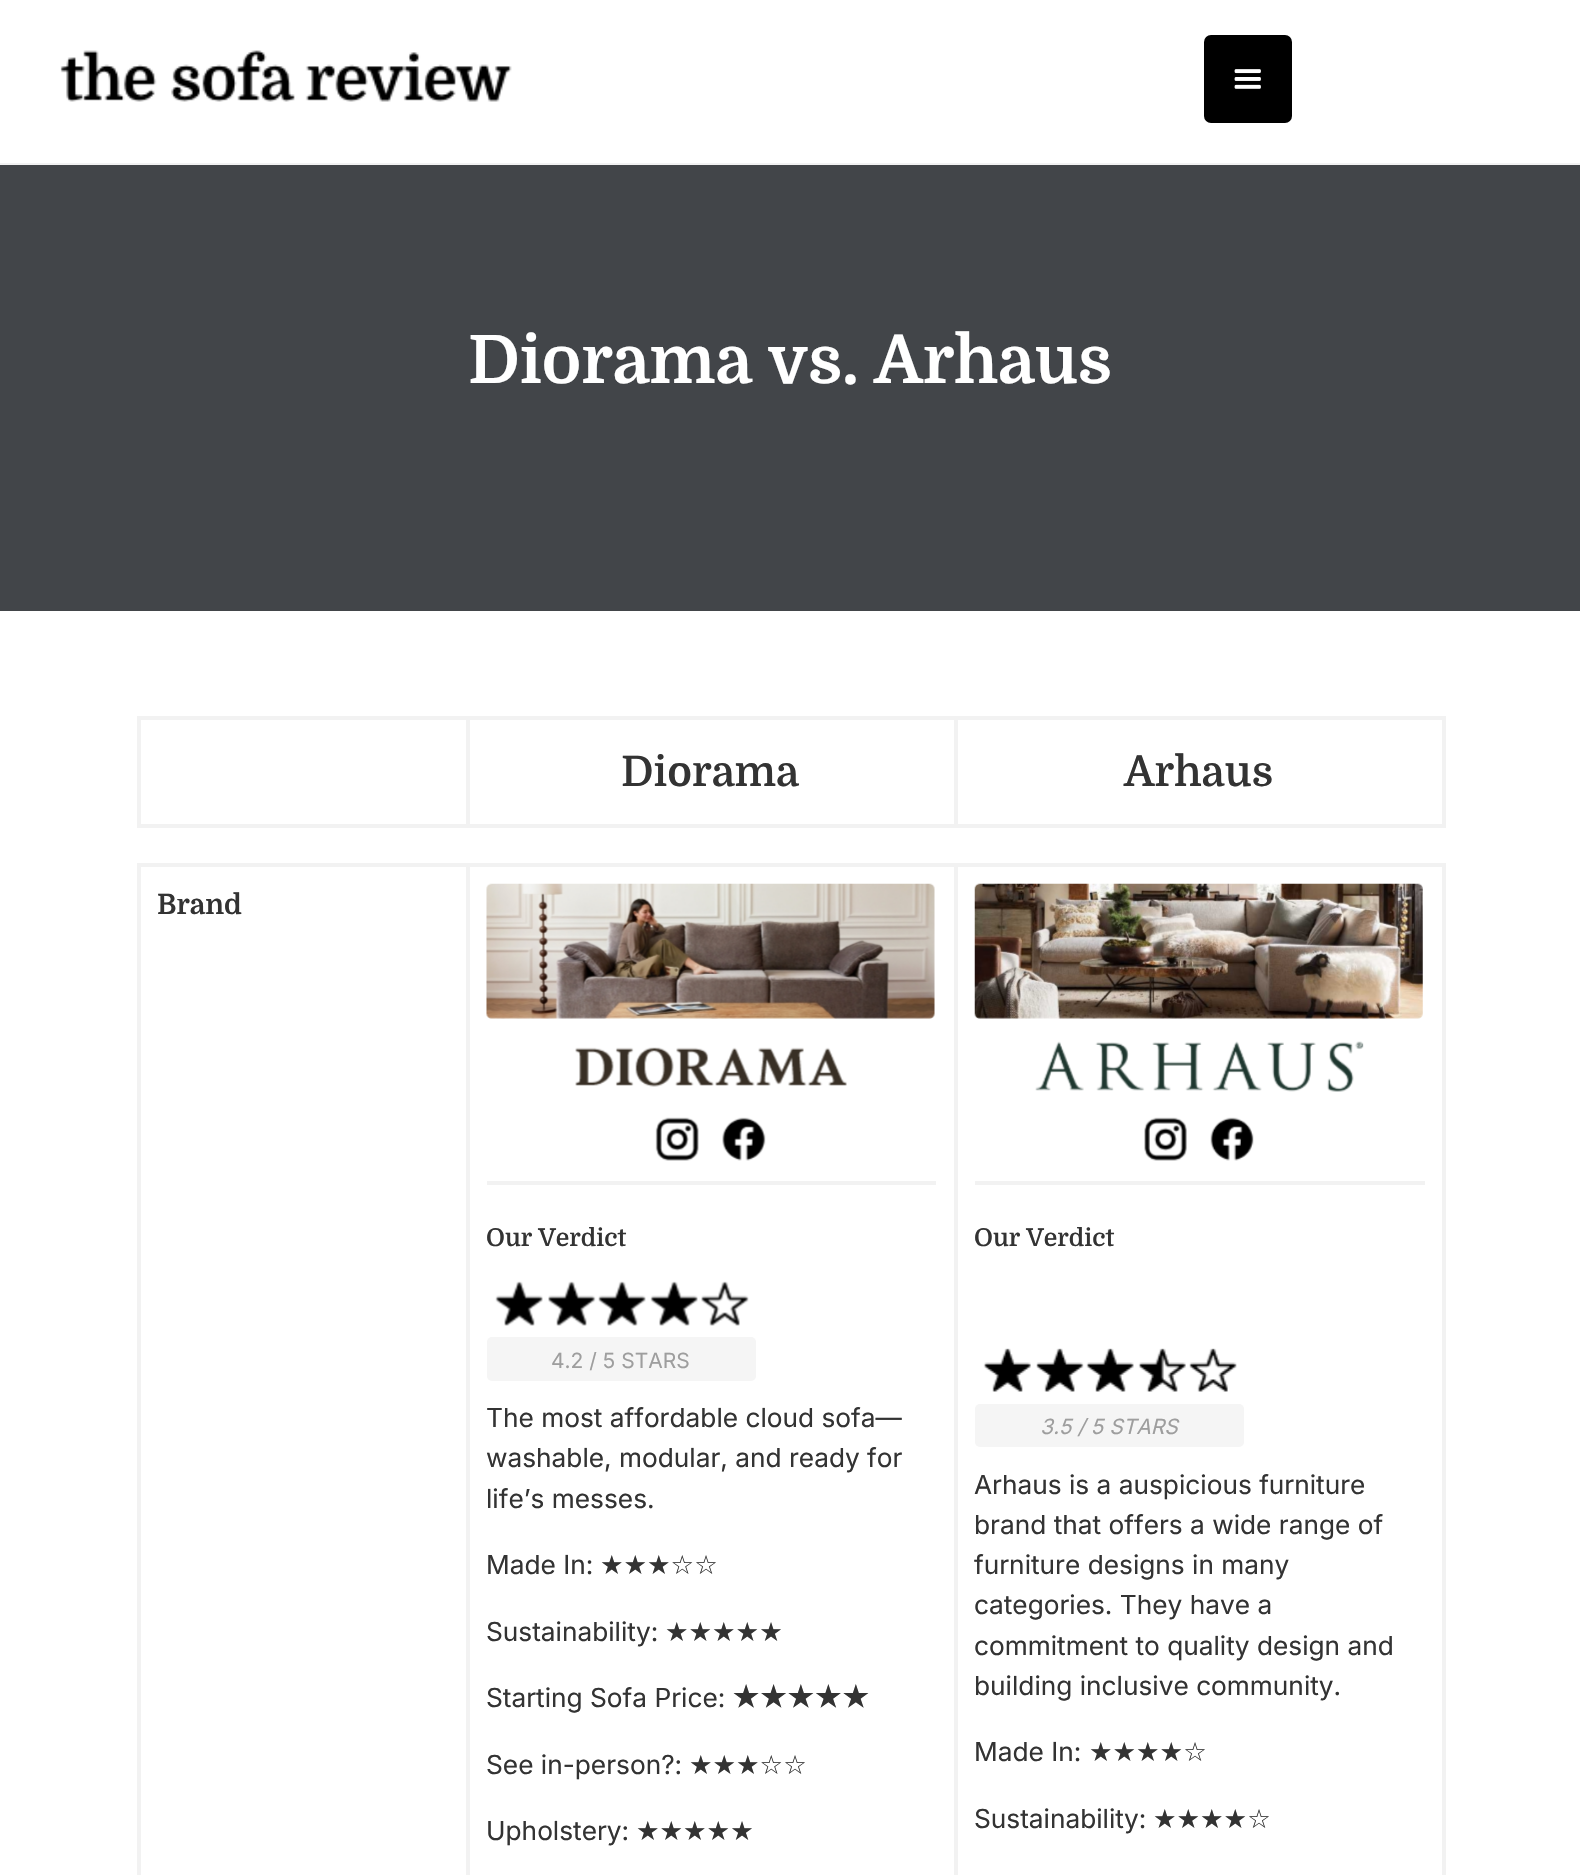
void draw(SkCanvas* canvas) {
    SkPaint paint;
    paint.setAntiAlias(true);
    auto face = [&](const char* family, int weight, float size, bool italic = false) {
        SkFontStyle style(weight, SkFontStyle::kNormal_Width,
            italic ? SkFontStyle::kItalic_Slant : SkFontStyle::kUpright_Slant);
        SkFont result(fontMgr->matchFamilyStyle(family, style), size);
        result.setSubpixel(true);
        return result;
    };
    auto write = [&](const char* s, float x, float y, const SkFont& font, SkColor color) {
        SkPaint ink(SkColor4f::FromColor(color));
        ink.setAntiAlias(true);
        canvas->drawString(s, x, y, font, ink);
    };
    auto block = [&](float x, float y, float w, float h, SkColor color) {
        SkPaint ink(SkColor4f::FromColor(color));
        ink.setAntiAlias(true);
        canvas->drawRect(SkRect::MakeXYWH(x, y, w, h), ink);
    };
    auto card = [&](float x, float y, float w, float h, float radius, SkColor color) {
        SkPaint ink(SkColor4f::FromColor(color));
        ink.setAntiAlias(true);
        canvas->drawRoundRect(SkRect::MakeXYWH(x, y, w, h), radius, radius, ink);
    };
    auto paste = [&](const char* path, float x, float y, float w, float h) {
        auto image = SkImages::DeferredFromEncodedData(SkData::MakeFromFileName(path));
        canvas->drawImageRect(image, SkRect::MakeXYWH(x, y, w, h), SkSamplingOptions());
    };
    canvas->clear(SkColorSetRGB(66, 69, 73));
    block(0, 0, 1580, 163, SK_ColorWHITE);
    block(0, 163, 1580, 2, SkColorSetRGB(242, 242, 242));
    paste("pic1.png", 60, 50, 452, 52);
    card(1204, 35, 88, 88, 7, SK_ColorBLACK);
    paste("pic2.png", 1234, 69, 27, 20);
    auto kFont1 = face("Domine", 700, 66.5f);
    write("Diorama vs. Arhaus", 468, 383, kFont1, SK_ColorWHITE);
    block(0, 611, 1580, 1264, SK_ColorWHITE);
    paint.setStyle(SkPaint::kStroke_Style);
    paint.setStrokeWidth(4);
    paint.setColor(SkColorSetRGB(242, 242, 242));
    canvas->drawRect(SkRect::MakeXYWH(139, 718, 1305, 108), paint);
    block(466, 719, 4, 105, SkColorSetRGB(242, 242, 242));
    auto kFont2 = face("Domine", 600, 42);
    write("Diorama", 621, 786, kFont2, SkColorSetRGB(51, 51, 51));
    block(954, 719, 4, 105, SkColorSetRGB(242, 242, 242));
    write("Arhaus", 1124, 786, kFont2, SkColorSetRGB(51, 51, 51));
    canvas->drawRect(SkRect::MakeXYWH(139, 865, 1305, 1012), paint);
    auto kFont3 = face("Domine", 700, 28);
    write("Brand", 157, 914, kFont3, SkColorSetRGB(51, 51, 51));
    block(466, 866, 4, 1009, SkColorSetRGB(242, 242, 242));
    paste("pic3.png", 486, 883, 449, 136);
    paste("pic4.png", 575, 1047, 272, 40);
    paste("pic5.png", 655, 1117, 44, 44);
    paste("pic6.png", 722, 1117, 44, 44);
    block(487, 1181, 449, 4, SkColorSetRGB(242, 242, 242));
    auto kFont4 = face("Domine", 600, 24.5f);
    write("Our Verdict", 486, 1246, kFont4, SkColorSetRGB(51, 51, 51));
    paste("pic7.png", 495, 1281, 254, 45);
    card(487, 1337, 269, 44, 5, SkColorSetRGB(245, 245, 245));
    auto kFont5 = face("Inter", 400, 21);
    write("4.2 / 5 STARS", 551, 1368, kFont5, SkColorSetRGB(158, 158, 158));
    auto kFont6 = face("Inter", 400, 26.25f);
    write("The most affordable cloud sofa—", 486, 1427, kFont6, SkColorSetRGB(51, 51, 51));
    write("washable, modular, and ready for", 486, 1467, kFont6, SkColorSetRGB(51, 51, 51));
    write("life’s messes.", 486, 1508, kFont6, SkColorSetRGB(51, 51, 51));
    write("Made In:", 486, 1574, kFont6, SkColorSetRGB(51, 51, 51));
    auto kFont7 = face("DejaVu Sans", 400, 26.25f);
    write("★★★☆☆", 600, 1574, kFont7, SkColorSetRGB(51, 51, 51));
    write("Sustainability:", 486, 1641, kFont6, SkColorSetRGB(51, 51, 51));
    write("★★★★★", 665, 1641, kFont7, SkColorSetRGB(51, 51, 51));
    write("Starting Sofa Price:", 486, 1707, kFont6, SkColorSetRGB(51, 51, 51));
    auto kFont8 = face("Inter", 700, 26.25f);
    write("★★★★★", 732, 1707, kFont8, SkColorSetRGB(51, 51, 51));
    write("See in-person?:", 486, 1774, kFont6, SkColorSetRGB(51, 51, 51));
    write("★★★☆☆", 689, 1774, kFont7, SkColorSetRGB(51, 51, 51));
    write("Upholstery:", 486, 1840, kFont6, SkColorSetRGB(51, 51, 51));
    write("★★★★★", 636, 1840, kFont7, SkColorSetRGB(51, 51, 51));
    block(954, 866, 4, 1009, SkColorSetRGB(242, 242, 242));
    paste("pic8.png", 974, 883, 449, 136);
    paste("pic9.png", 1035, 1041, 329, 51);
    paste("pic10.png", 1144, 1117, 43, 44);
    paste("pic11.png", 1210, 1117, 44, 44);
    block(975, 1181, 450, 4, SkColorSetRGB(242, 242, 242));
    write("Our Verdict", 974, 1246, kFont4, SkColorSetRGB(51, 51, 51));
    paste("pic12.png", 983, 1348, 254, 44);
    card(975, 1404, 269, 43, 5, SkColorSetRGB(245, 245, 245));
    auto kFont9 = face("Inter", 400, 21, true);
    write("3.5 / 5 STARS", 1040, 1434, kFont9, SkColorSetRGB(158, 158, 158));
    write("Arhaus is a auspicious furniture", 974, 1494, kFont6, SkColorSetRGB(51, 51, 51));
    write("brand that offers a wide range of", 974, 1534, kFont6, SkColorSetRGB(51, 51, 51));
    write("furniture designs in many", 974, 1574, kFont6, SkColorSetRGB(51, 51, 51));
    write("categories. They have a", 974, 1614, kFont6, SkColorSetRGB(51, 51, 51));
    write("commitment to quality design and", 974, 1655, kFont6, SkColorSetRGB(51, 51, 51));
    write("building inclusive community.", 974, 1695, kFont6, SkColorSetRGB(51, 51, 51));
    write("Made In:", 974, 1761, kFont6, SkColorSetRGB(51, 51, 51));
    write("★★★★☆", 1089, 1761, kFont7, SkColorSetRGB(51, 51, 51));
    write("Sustainability:", 974, 1828, kFont6, SkColorSetRGB(51, 51, 51));
    write("★★★★☆", 1153, 1828, kFont7, SkColorSetRGB(51, 51, 51));
}
